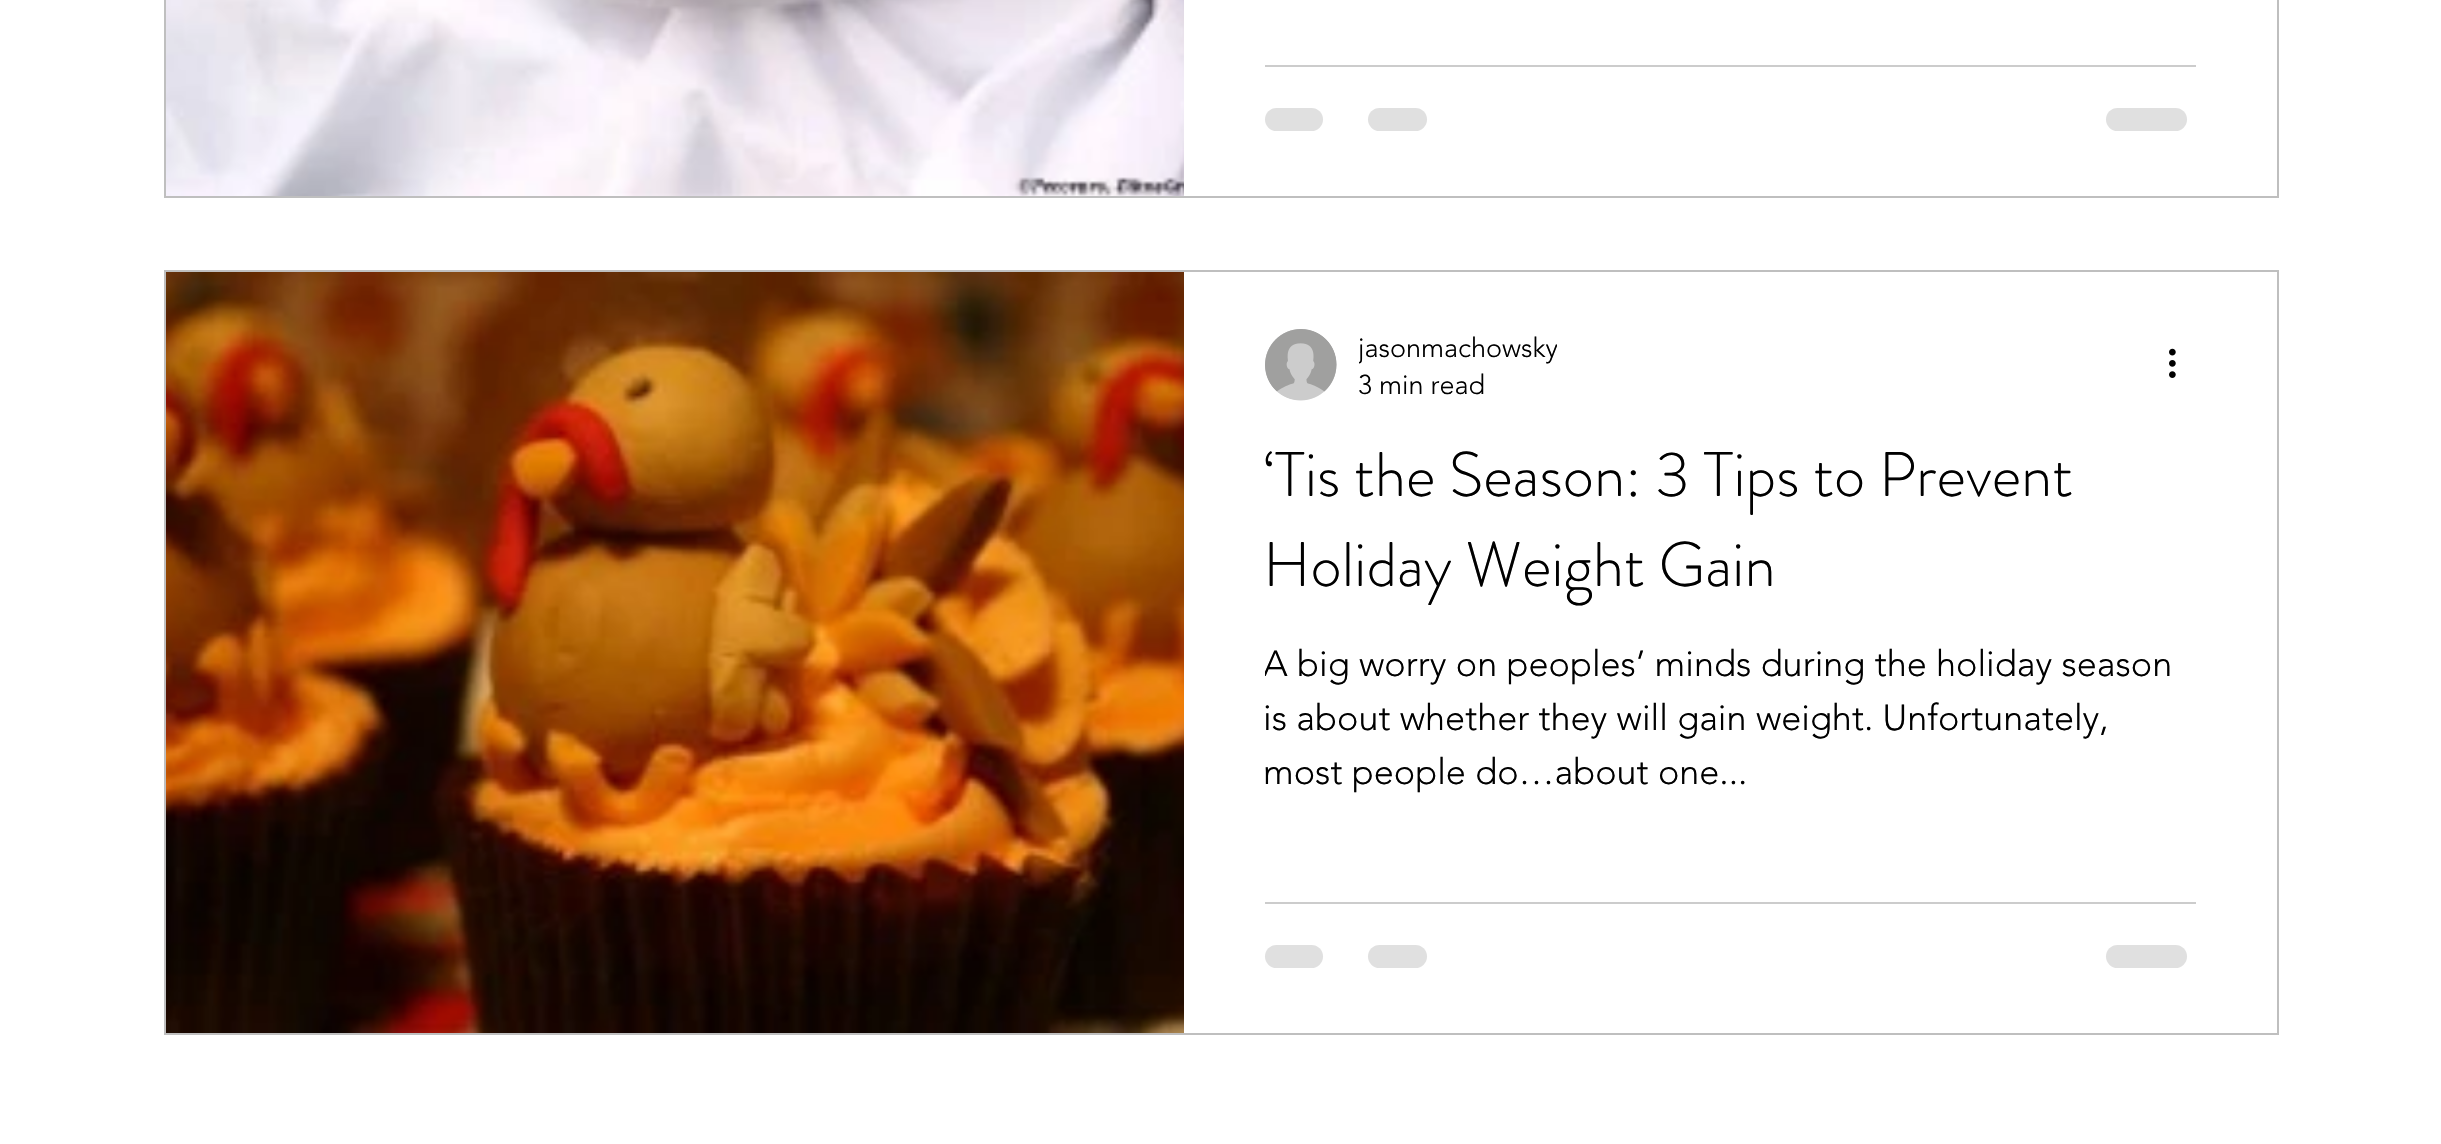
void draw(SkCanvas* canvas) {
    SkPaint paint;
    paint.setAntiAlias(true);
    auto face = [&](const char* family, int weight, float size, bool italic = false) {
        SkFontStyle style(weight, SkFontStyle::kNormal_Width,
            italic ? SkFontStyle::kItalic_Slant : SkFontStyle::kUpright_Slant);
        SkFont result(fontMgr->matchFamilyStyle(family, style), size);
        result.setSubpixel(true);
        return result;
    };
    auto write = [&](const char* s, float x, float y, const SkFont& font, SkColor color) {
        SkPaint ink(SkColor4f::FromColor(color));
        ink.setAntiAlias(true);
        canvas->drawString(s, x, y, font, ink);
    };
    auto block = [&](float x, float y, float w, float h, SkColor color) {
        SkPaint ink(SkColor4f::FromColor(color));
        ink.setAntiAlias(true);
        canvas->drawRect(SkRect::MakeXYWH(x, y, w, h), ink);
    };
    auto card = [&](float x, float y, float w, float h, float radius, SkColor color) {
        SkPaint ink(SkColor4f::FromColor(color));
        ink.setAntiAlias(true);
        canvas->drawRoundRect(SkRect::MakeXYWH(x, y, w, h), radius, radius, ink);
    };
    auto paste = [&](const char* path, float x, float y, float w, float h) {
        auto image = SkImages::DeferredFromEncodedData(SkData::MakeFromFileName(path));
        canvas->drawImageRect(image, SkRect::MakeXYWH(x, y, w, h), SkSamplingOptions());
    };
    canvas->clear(SK_ColorWHITE);
    paint.setStyle(SkPaint::kStroke_Style);
    paint.setStrokeWidth(2);
    paint.setColor(SkColorSetRGB(191, 191, 191));
    canvas->drawRect(SkRect::MakeXYWH(165, -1, 2113, 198), paint);
    paste("pic1.png", 166, 0, 1018, 196);
    block(1265, 65, 931, 2, SkColorSetRGB(204, 204, 204));
    card(1265, 108, 58, 23, 11.5f, SkColorSetRGB(224, 224, 224));
    card(1368, 108, 59, 23, 11.5f, SkColorSetRGB(224, 224, 224));
    card(2106, 108, 81, 23, 11.5f, SkColorSetRGB(224, 224, 224));
    canvas->drawRect(SkRect::MakeXYWH(165, 271, 2113, 763), paint);
    paste("pic2.png", 166, 272, 1018, 761);
    paste("pic3.png", 1265, 329, 72, 72);
    canvas->save();
    canvas->clipRect(SkRect::MakeXYWH(1359, 333, 198, 32));
    auto kFont1 = face("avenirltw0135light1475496", 300, 27);
    write("jasonmachowsky", 1358, 357, kFont1, SK_ColorBLACK);
    canvas->restore();
    write("3 min read", 1358, 394, kFont1, SK_ColorBLACK);
    paste("pic4.png", 2169, 348, 7, 30);
    auto kFont2 = face("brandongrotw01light", 300, 63);
    write("‘Tis the Season: 3 Tips to Prevent", 1263, 496, kFont2, SK_ColorBLACK);
    write("Holiday Weight Gain", 1263, 586, kFont2, SK_ColorBLACK);
    canvas->save();
    canvas->clipRect(SkRect::MakeXYWH(1265, 639, 931, 162));
    auto kFont3 = face("avenirltw0135light1475496", 300, 36);
    write("A big worry on peoples’ minds during the holiday season", 1263, 676, kFont3, SK_ColorBLACK);
    canvas->restore();
    write("is about whether they will gain weight. Unfortunately,", 1263, 730, kFont3, SK_ColorBLACK);
    write("most people do…about one...", 1263, 784, kFont3, SK_ColorBLACK);
    block(1265, 902, 931, 2, SkColorSetRGB(204, 204, 204));
    card(1265, 945, 58, 23, 11.5f, SkColorSetRGB(224, 224, 224));
    card(1368, 945, 59, 23, 11.5f, SkColorSetRGB(224, 224, 224));
    card(2106, 945, 81, 23, 11.5f, SkColorSetRGB(224, 224, 224));
}
